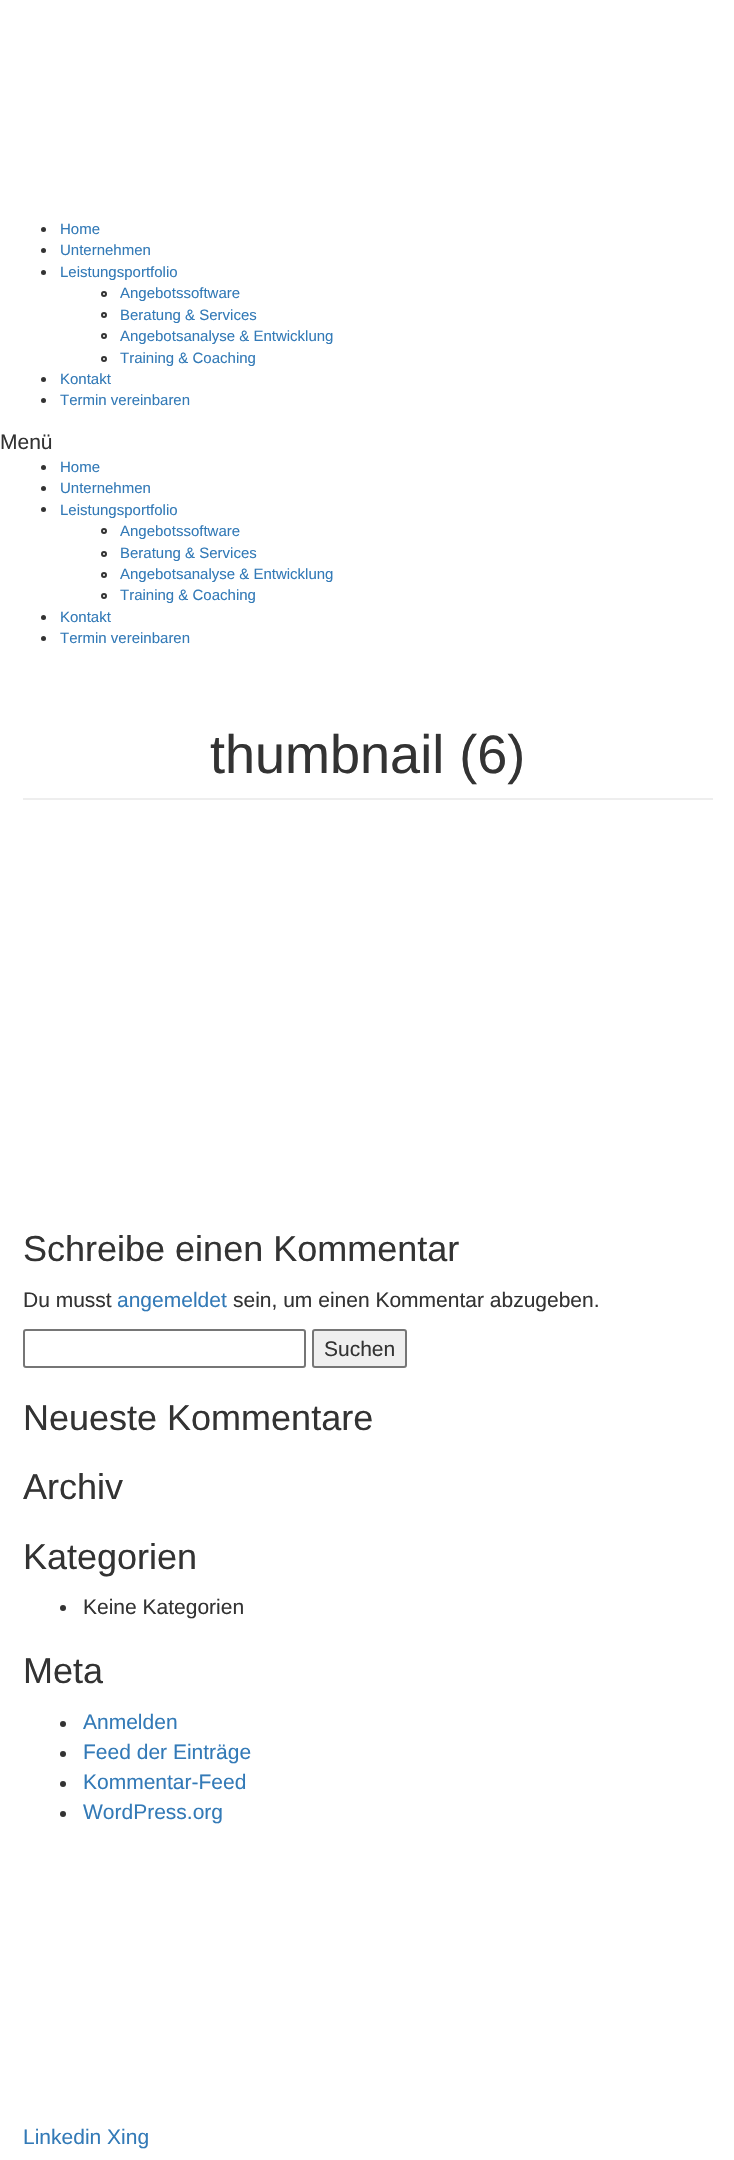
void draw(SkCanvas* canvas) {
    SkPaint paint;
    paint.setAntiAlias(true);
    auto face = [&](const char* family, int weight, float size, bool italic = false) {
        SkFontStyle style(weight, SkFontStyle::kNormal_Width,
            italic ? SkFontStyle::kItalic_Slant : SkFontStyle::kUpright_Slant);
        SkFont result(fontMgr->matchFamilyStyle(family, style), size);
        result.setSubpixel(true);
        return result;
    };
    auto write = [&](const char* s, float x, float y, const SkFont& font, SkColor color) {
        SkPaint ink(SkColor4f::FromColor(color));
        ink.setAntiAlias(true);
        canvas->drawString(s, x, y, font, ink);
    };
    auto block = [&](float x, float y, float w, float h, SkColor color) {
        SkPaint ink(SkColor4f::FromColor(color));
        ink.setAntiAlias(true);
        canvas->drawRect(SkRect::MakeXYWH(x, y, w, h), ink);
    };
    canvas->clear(SK_ColorWHITE);
    paint.setColor(SkColorSetRGB(51, 51, 51));
    canvas->drawCircle(43.5f, 229.5f, 2.5f, paint);
    auto kFont1 = face("Liberation Sans", 400, 15);
    write("Home", 60, 234, kFont1, SkColorSetRGB(51, 122, 183));
    canvas->drawCircle(43.5f, 250.5f, 2.5f, paint);
    write("Unternehmen", 60, 255, kFont1, SkColorSetRGB(51, 122, 183));
    canvas->drawCircle(43.5f, 272.5f, 2.5f, paint);
    write("Leistungsportfolio", 60, 277, kFont1, SkColorSetRGB(51, 122, 183));
    paint.setStyle(SkPaint::kStroke_Style);
    paint.setStrokeWidth(2);
    canvas->drawCircle(104, 294, 2, paint);
    write("Angebotssoftware", 120, 298, kFont1, SkColorSetRGB(51, 122, 183));
    canvas->drawCircle(104, 315, 2, paint);
    write("Beratung & Services", 120, 320, kFont1, SkColorSetRGB(51, 122, 183));
    canvas->drawCircle(104, 336, 2, paint);
    write("Angebotsanalyse & Entwicklung", 120, 341, kFont1, SkColorSetRGB(51, 122, 183));
    canvas->drawCircle(104, 359, 2, paint);
    write("Training & Coaching", 120, 363, kFont1, SkColorSetRGB(51, 122, 183));
    paint.setStyle(SkPaint::kFill_Style);
    canvas->drawCircle(43.5f, 379.5f, 2.5f, paint);
    write("Kontakt", 60, 384, kFont1, SkColorSetRGB(51, 122, 183));
    canvas->drawCircle(43.5f, 400.5f, 2.5f, paint);
    write("Termin vereinbaren", 60, 405, kFont1, SkColorSetRGB(51, 122, 183));
    auto kFont2 = face("Liberation Sans", 400, 21);
    write("Menü", 0, 449, kFont2, SkColorSetRGB(51, 51, 51));
    canvas->drawCircle(43.5f, 467.5f, 2.5f, paint);
    write("Home", 60, 472, kFont1, SkColorSetRGB(51, 122, 183));
    canvas->drawCircle(43.5f, 488.5f, 2.5f, paint);
    write("Unternehmen", 60, 493, kFont1, SkColorSetRGB(51, 122, 183));
    canvas->drawCircle(43.5f, 509.5f, 2.5f, paint);
    write("Leistungsportfolio", 60, 515, kFont1, SkColorSetRGB(51, 122, 183));
    paint.setStyle(SkPaint::kStroke_Style);
    canvas->drawCircle(104, 531, 2, paint);
    write("Angebotssoftware", 120, 536, kFont1, SkColorSetRGB(51, 122, 183));
    canvas->drawCircle(104, 554, 2, paint);
    write("Beratung & Services", 120, 558, kFont1, SkColorSetRGB(51, 122, 183));
    canvas->drawCircle(104, 575, 2, paint);
    write("Angebotsanalyse & Entwicklung", 120, 579, kFont1, SkColorSetRGB(51, 122, 183));
    canvas->drawCircle(104, 596, 2, paint);
    write("Training & Coaching", 120, 600, kFont1, SkColorSetRGB(51, 122, 183));
    paint.setStyle(SkPaint::kFill_Style);
    canvas->drawCircle(43.5f, 617.5f, 2.5f, paint);
    write("Kontakt", 60, 622, kFont1, SkColorSetRGB(51, 122, 183));
    canvas->drawCircle(43.5f, 638.5f, 2.5f, paint);
    write("Termin vereinbaren", 60, 643, kFont1, SkColorSetRGB(51, 122, 183));
    block(23, 798, 690, 2, SkColorSetRGB(238, 238, 238));
    auto kFont3 = face("Liberation Sans", 400, 54);
    write("thumbnail (6)", 210, 773, kFont3, SkColorSetRGB(51, 51, 51));
    auto kFont4 = face("Liberation Sans", 400, 36);
    write("Schreibe einen Kommentar", 23, 1261, kFont4, SkColorSetRGB(51, 51, 51));
    write("Du musst", 23, 1307, kFont2, SkColorSetRGB(51, 51, 51));
    write("angemeldet", 117, 1307, kFont2, SkColorSetRGB(51, 122, 183));
    write("sein, um einen Kommentar abzugeben.", 233, 1307, kFont2, SkColorSetRGB(51, 51, 51));
    paint.setStyle(SkPaint::kStroke_Style);
    paint.setColor(SkColorSetRGB(118, 118, 118));
    canvas->drawRoundRect(SkRect::MakeXYWH(24, 1330, 281, 37), 2, 2, paint);
    paint.setStyle(SkPaint::kFill_Style);
    paint.setColor(SkColorSetRGB(239, 239, 239));
    canvas->drawRoundRect(SkRect::MakeXYWH(313, 1330, 93, 37), 2, 2, paint);
    paint.setStyle(SkPaint::kStroke_Style);
    paint.setColor(SkColorSetRGB(118, 118, 118));
    canvas->drawRoundRect(SkRect::MakeXYWH(313, 1330, 93, 37), 2, 2, paint);
    write("Suchen", 324, 1356, kFont2, SkColorSetRGB(51, 51, 51));
    write("Neueste Kommentare", 23, 1430, kFont4, SkColorSetRGB(51, 51, 51));
    write("Archiv", 23, 1499, kFont4, SkColorSetRGB(51, 51, 51));
    write("Kategorien", 23, 1569, kFont4, SkColorSetRGB(51, 51, 51));
    paint.setStyle(SkPaint::kFill_Style);
    paint.setColor(SkColorSetRGB(51, 51, 51));
    canvas->drawCircle(63, 1608, 3, paint);
    write("Keine Kategorien", 83, 1614, kFont2, SkColorSetRGB(51, 51, 51));
    write("Meta", 23, 1683, kFont4, SkColorSetRGB(51, 51, 51));
    canvas->drawCircle(63, 1724, 3, paint);
    write("Anmelden", 83, 1729, kFont2, SkColorSetRGB(51, 122, 183));
    canvas->drawCircle(63, 1754, 3, paint);
    write("Feed der Einträge", 83, 1759, kFont2, SkColorSetRGB(51, 122, 183));
    canvas->drawCircle(63, 1784, 3, paint);
    write("Kommentar-Feed", 83, 1789, kFont2, SkColorSetRGB(51, 122, 183));
    canvas->drawCircle(63, 1814, 3, paint);
    write("WordPress.org", 83, 1819, kFont2, SkColorSetRGB(51, 122, 183));
    write("Linkedin Xing", 23, 2144, kFont2, SkColorSetRGB(51, 122, 183));
}
